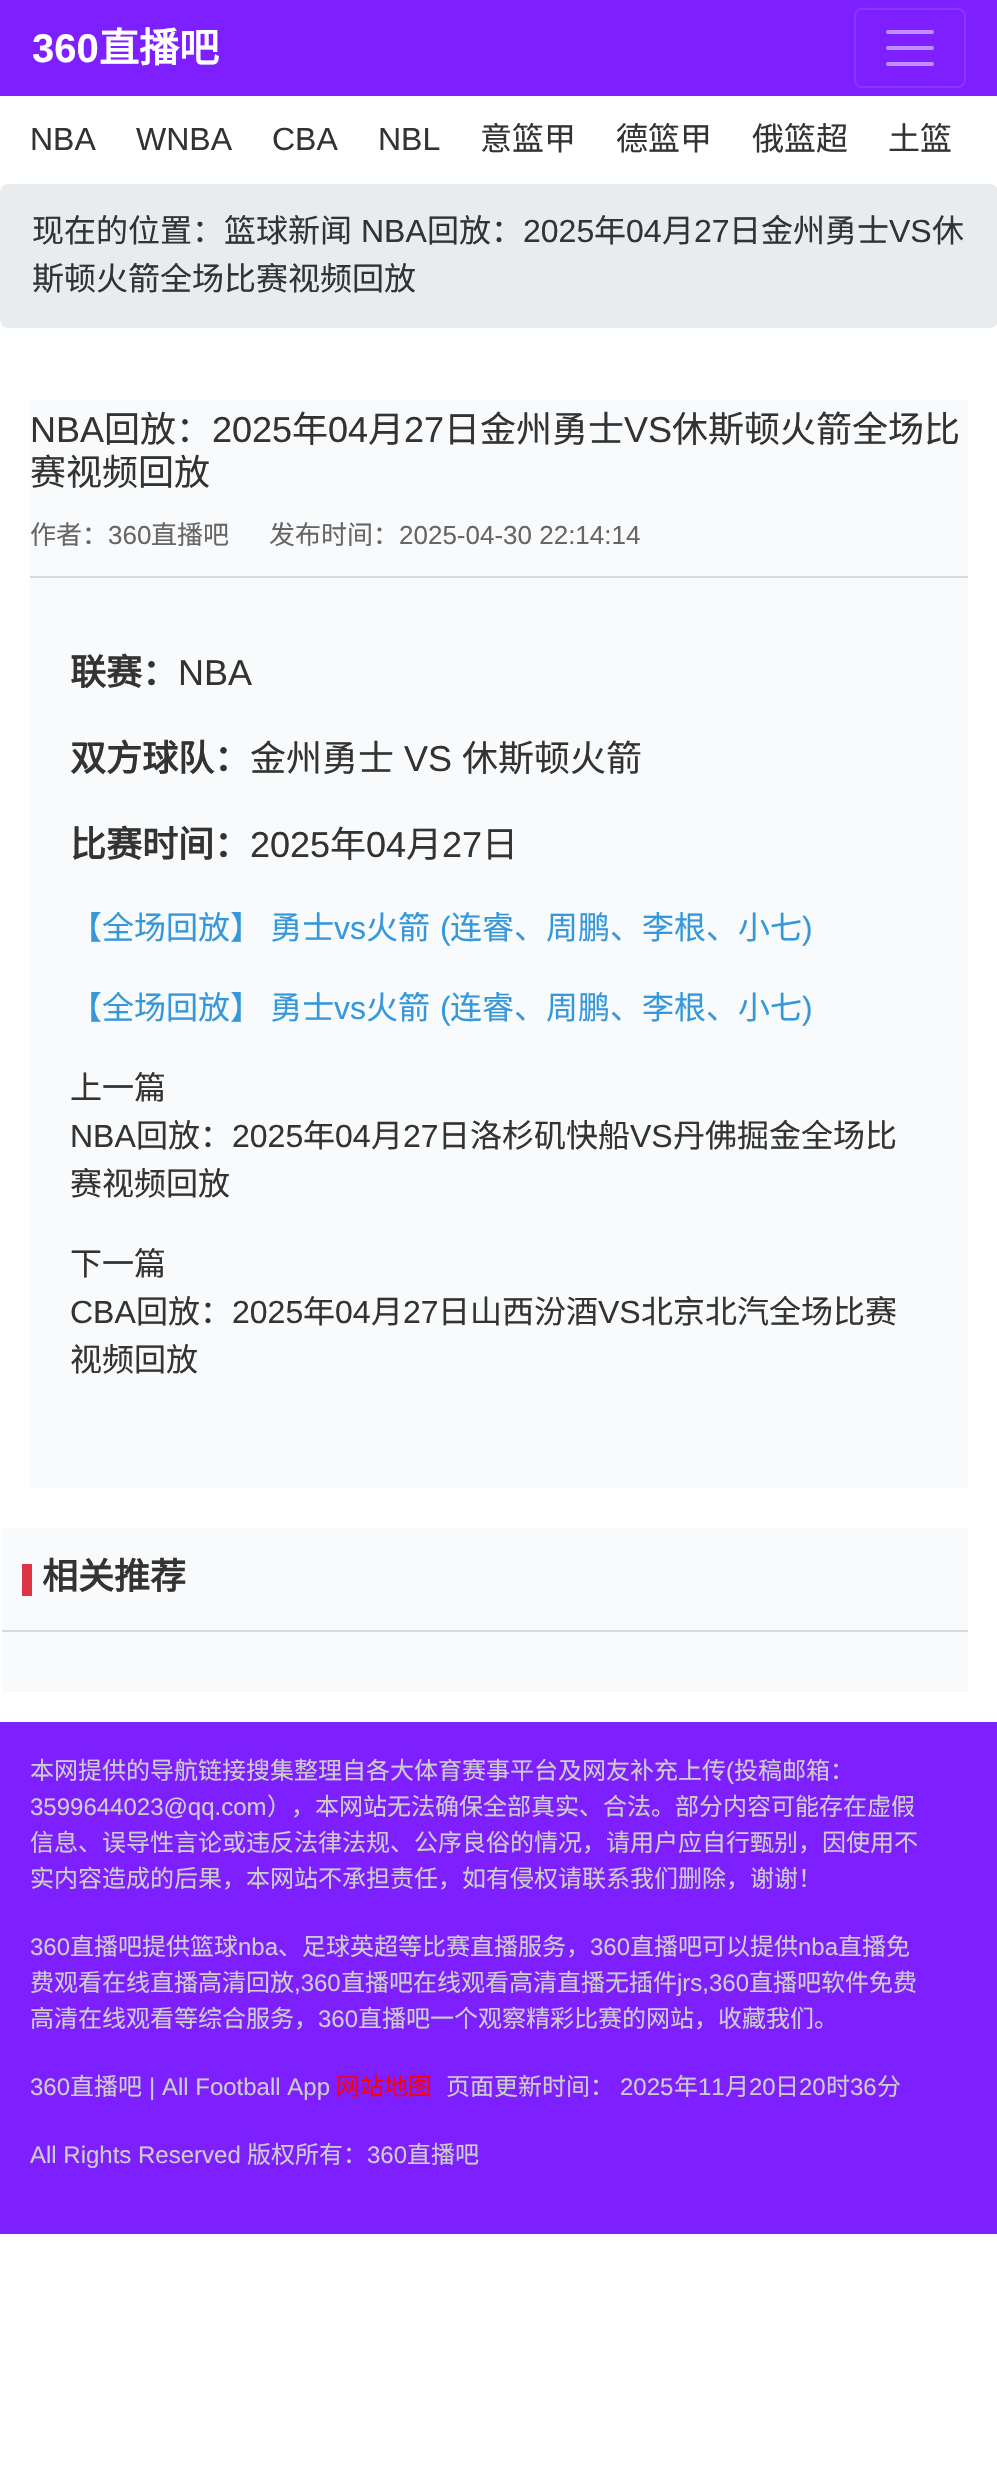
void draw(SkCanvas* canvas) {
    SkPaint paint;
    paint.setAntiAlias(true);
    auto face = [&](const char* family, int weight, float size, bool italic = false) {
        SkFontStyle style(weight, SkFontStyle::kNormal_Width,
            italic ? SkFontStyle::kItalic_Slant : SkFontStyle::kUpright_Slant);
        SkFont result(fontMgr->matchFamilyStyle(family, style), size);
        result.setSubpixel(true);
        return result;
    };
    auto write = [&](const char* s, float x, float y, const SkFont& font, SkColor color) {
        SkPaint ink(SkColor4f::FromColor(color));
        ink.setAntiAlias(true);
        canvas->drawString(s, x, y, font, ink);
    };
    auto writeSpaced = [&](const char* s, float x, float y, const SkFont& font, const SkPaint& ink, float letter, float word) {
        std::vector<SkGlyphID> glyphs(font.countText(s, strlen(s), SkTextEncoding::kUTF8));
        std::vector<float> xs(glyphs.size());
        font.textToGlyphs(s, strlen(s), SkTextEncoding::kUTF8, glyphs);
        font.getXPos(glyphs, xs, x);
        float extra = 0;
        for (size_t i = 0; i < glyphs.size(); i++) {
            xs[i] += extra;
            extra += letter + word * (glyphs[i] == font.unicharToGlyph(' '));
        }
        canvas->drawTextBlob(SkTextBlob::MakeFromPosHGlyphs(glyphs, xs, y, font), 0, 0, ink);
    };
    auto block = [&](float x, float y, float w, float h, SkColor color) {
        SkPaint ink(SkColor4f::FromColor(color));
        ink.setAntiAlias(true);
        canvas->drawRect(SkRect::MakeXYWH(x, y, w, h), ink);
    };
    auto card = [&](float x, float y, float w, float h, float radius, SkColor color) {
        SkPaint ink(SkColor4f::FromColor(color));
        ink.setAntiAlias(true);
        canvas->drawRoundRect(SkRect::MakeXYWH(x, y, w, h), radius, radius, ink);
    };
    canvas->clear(SK_ColorWHITE);
    block(0, 0, 997, 96, SkColorSetRGB(126, 31, 255));
    auto kFont1 = face("Liberation Sans", 700, 40);
    write("360", 32, 62, kFont1, SK_ColorWHITE);
    auto kFont2 = face("Noto Sans CJK SC", 700, 40);
    write("直播吧", 99, 62, kFont2, SK_ColorWHITE);
    paint.setStyle(SkPaint::kStroke_Style);
    paint.setStrokeWidth(2);
    paint.setColor(SkColorSetRGB(139, 53, 255));
    canvas->drawRoundRect(SkRect::MakeXYWH(855, 9, 110, 78), 7, 7, paint);
    paint.setStrokeWidth(4);
    paint.setStrokeCap(SkPaint::kRound_Cap);
    paint.setColor(SkColorSetRGB(191, 143, 255));
    canvas->drawPath(SkPathBuilder().moveTo(888, 32).lineTo(932, 32).moveTo(888, 48).lineTo(932, 48).moveTo(888, 64).lineTo(932, 64).detach(), paint);
    auto kFont3 = face("Liberation Sans", 400, 32);
    write("NBA", 30, 150, kFont3, SkColorSetRGB(51, 51, 51));
    write("WNBA", 136, 150, kFont3, SkColorSetRGB(51, 51, 51));
    write("CBA", 272, 150, kFont3, SkColorSetRGB(51, 51, 51));
    write("NBL", 378, 150, kFont3, SkColorSetRGB(51, 51, 51));
    auto kFont4 = face("Noto Sans CJK SC", 400, 32);
    write("意篮甲", 480, 150, kFont4, SkColorSetRGB(51, 51, 51));
    write("德篮甲", 616, 150, kFont4, SkColorSetRGB(51, 51, 51));
    write("俄篮超", 752, 150, kFont4, SkColorSetRGB(51, 51, 51));
    write("土篮", 888, 150, kFont4, SkColorSetRGB(51, 51, 51));
    card(0, 184, 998, 144, 8, SkColorSetRGB(233, 236, 239));
    write("现在的位置：篮球新闻", 32, 242, kFont4, SkColorSetRGB(51, 51, 51));
    write("NBA", 361, 242, kFont3, SkColorSetRGB(51, 51, 51));
    write("回放：", 427, 242, kFont4, SkColorSetRGB(51, 51, 51));
    write("2025", 523, 242, kFont3, SkColorSetRGB(51, 51, 51));
    write("年", 594, 242, kFont4, SkColorSetRGB(51, 51, 51));
    write("04", 626, 242, kFont3, SkColorSetRGB(51, 51, 51));
    write("月", 662, 242, kFont4, SkColorSetRGB(51, 51, 51));
    write("27", 694, 242, kFont3, SkColorSetRGB(51, 51, 51));
    write("日金州勇士", 729, 242, kFont4, SkColorSetRGB(51, 51, 51));
    write("VS", 889, 242, kFont3, SkColorSetRGB(51, 51, 51));
    write("休", 932, 242, kFont4, SkColorSetRGB(51, 51, 51));
    write("斯顿火箭全场比赛视频回放", 32, 290, kFont4, SkColorSetRGB(51, 51, 51));
    block(30, 400, 938, 176, SkColorSetRGB(248, 250, 251));
    block(30, 576, 938, 2, SkColorSetRGB(217, 219, 220));
    auto kFont5 = face("Liberation Sans", 400, 36);
    write("NBA", 30, 442, kFont5, SkColorSetRGB(51, 51, 51));
    auto kFont6 = face("Noto Sans CJK SC", 400, 36);
    write("回放：", 104, 442, kFont6, SkColorSetRGB(51, 51, 51));
    write("2025", 212, 442, kFont5, SkColorSetRGB(51, 51, 51));
    write("年", 292, 442, kFont6, SkColorSetRGB(51, 51, 51));
    write("04", 328, 442, kFont5, SkColorSetRGB(51, 51, 51));
    write("月", 368, 442, kFont6, SkColorSetRGB(51, 51, 51));
    write("27", 404, 442, kFont5, SkColorSetRGB(51, 51, 51));
    write("日金州勇士", 444, 442, kFont6, SkColorSetRGB(51, 51, 51));
    write("VS", 624, 442, kFont5, SkColorSetRGB(51, 51, 51));
    write("休斯顿火箭全场比", 672, 442, kFont6, SkColorSetRGB(51, 51, 51));
    write("赛视频回放", 30, 485, kFont6, SkColorSetRGB(51, 51, 51));
    auto kFont7 = face("Noto Sans CJK SC", 400, 26);
    write("作者：", 30, 544, kFont7, SkColorSetRGB(102, 102, 102));
    auto kFont8 = face("Liberation Sans", 400, 26);
    write("360", 108, 544, kFont8, SkColorSetRGB(102, 102, 102));
    write("直播吧", 151, 544, kFont7, SkColorSetRGB(102, 102, 102));
    write("发布时间：", 269, 544, kFont7, SkColorSetRGB(102, 102, 102));
    write("2025-04-30 22:14:14", 399, 544, kFont8, SkColorSetRGB(102, 102, 102));
    block(30, 578, 938, 910, SkColorSetRGB(248, 250, 251));
    auto kFont9 = face("Noto Sans CJK SC", 700, 36);
    write("联赛：", 70, 685, kFont9, SkColorSetRGB(51, 51, 51));
    write("NBA", 178, 685, kFont5, SkColorSetRGB(51, 51, 51));
    write("双方球队：", 70, 771, kFont9, SkColorSetRGB(51, 51, 51));
    write("金州勇士", 250, 771, kFont6, SkColorSetRGB(51, 51, 51));
    write("VS", 404, 771, kFont5, SkColorSetRGB(51, 51, 51));
    write("休斯顿火箭", 462, 771, kFont6, SkColorSetRGB(51, 51, 51));
    write("比赛时间：", 70, 857, kFont9, SkColorSetRGB(51, 51, 51));
    write("2025", 250, 857, kFont5, SkColorSetRGB(51, 51, 51));
    write("年", 330, 857, kFont6, SkColorSetRGB(51, 51, 51));
    write("04", 366, 857, kFont5, SkColorSetRGB(51, 51, 51));
    write("月", 406, 857, kFont6, SkColorSetRGB(51, 51, 51));
    write("27", 442, 857, kFont5, SkColorSetRGB(51, 51, 51));
    write("日", 482, 857, kFont6, SkColorSetRGB(51, 51, 51));
    paint.setStyle(SkPaint::kFill_Style);
    paint.setColor(SkColorSetRGB(53, 152, 219));
    writeSpaced("【全场回放】 勇士", 70, 939, kFont4, paint, 0, 1);
    write("vs", 334, 939, kFont3, SkColorSetRGB(53, 152, 219));
    write("火箭", 366, 939, kFont4, SkColorSetRGB(53, 152, 219));
    write("(", 440, 939, kFont3, SkColorSetRGB(53, 152, 219));
    write("连睿、周鹏、李根、小七", 450, 939, kFont4, SkColorSetRGB(53, 152, 219));
    write(")", 802, 939, kFont3, SkColorSetRGB(53, 152, 219));
    writeSpaced("【全场回放】 勇士", 70, 1019, kFont4, paint, 0, 1);
    write("vs", 334, 1019, kFont3, SkColorSetRGB(53, 152, 219));
    write("火箭", 366, 1019, kFont4, SkColorSetRGB(53, 152, 219));
    write("(", 440, 1019, kFont3, SkColorSetRGB(53, 152, 219));
    write("连睿、周鹏、李根、小七", 450, 1019, kFont4, SkColorSetRGB(53, 152, 219));
    write(")", 802, 1019, kFont3, SkColorSetRGB(53, 152, 219));
    write("上一篇", 70, 1099, kFont4, SkColorSetRGB(51, 51, 51));
    write("NBA", 70, 1147, kFont3, SkColorSetRGB(51, 51, 51));
    write("回放：", 136, 1147, kFont4, SkColorSetRGB(51, 51, 51));
    write("2025", 232, 1147, kFont3, SkColorSetRGB(51, 51, 51));
    write("年", 303, 1147, kFont4, SkColorSetRGB(51, 51, 51));
    write("04", 335, 1147, kFont3, SkColorSetRGB(51, 51, 51));
    write("月", 371, 1147, kFont4, SkColorSetRGB(51, 51, 51));
    write("27", 403, 1147, kFont3, SkColorSetRGB(51, 51, 51));
    write("日洛杉矶快船", 438, 1147, kFont4, SkColorSetRGB(51, 51, 51));
    write("VS", 630, 1147, kFont3, SkColorSetRGB(51, 51, 51));
    write("丹佛掘金全场比", 673, 1147, kFont4, SkColorSetRGB(51, 51, 51));
    write("赛视频回放", 70, 1195, kFont4, SkColorSetRGB(51, 51, 51));
    write("下一篇", 70, 1275, kFont4, SkColorSetRGB(51, 51, 51));
    write("CBA", 70, 1323, kFont3, SkColorSetRGB(51, 51, 51));
    write("回放：", 136, 1323, kFont4, SkColorSetRGB(51, 51, 51));
    write("2025", 232, 1323, kFont3, SkColorSetRGB(51, 51, 51));
    write("年", 303, 1323, kFont4, SkColorSetRGB(51, 51, 51));
    write("04", 335, 1323, kFont3, SkColorSetRGB(51, 51, 51));
    write("月", 371, 1323, kFont4, SkColorSetRGB(51, 51, 51));
    write("27", 403, 1323, kFont3, SkColorSetRGB(51, 51, 51));
    write("日山西汾酒", 438, 1323, kFont4, SkColorSetRGB(51, 51, 51));
    write("VS", 598, 1323, kFont3, SkColorSetRGB(51, 51, 51));
    write("北京北汽全场比赛", 641, 1323, kFont4, SkColorSetRGB(51, 51, 51));
    write("视频回放", 70, 1371, kFont4, SkColorSetRGB(51, 51, 51));
    block(2, 1528, 966, 102, SkColorSetRGB(248, 250, 251));
    block(2, 1630, 966, 2, SkColorSetRGB(217, 219, 220));
    block(22, 1564, 10, 32, SkColorSetRGB(220, 53, 69));
    write("相关推荐", 42, 1589, kFont9, SkColorSetRGB(51, 51, 51));
    block(2, 1632, 966, 60, SkColorSetRGB(248, 250, 251));
    block(0, 1722, 997, 512, SkColorSetRGB(126, 31, 255));
    auto kFont10 = face("Noto Sans CJK SC", 400, 24);
    write("本网提供的导航链接搜集整理自各大体育赛事平台及网友补充上传", 30, 1779, kFont10, SkColorSetRGB(204, 204, 204));
    auto kFont11 = face("Liberation Sans", 400, 24);
    write("(", 726, 1779, kFont11, SkColorSetRGB(204, 204, 204));
    write("投稿邮箱：", 734, 1779, kFont10, SkColorSetRGB(204, 204, 204));
    write("3599644023@qq.com", 30, 1815, kFont11, SkColorSetRGB(204, 204, 204));
    write("），本网站无法确保全部真实、合法。部分内容可能存在虚假", 267, 1815, kFont10, SkColorSetRGB(204, 204, 204));
    write("信息、误导性言论或违反法律法规、公序良俗的情况，请用户应自行甄别，因使用不", 30, 1851, kFont10, SkColorSetRGB(204, 204, 204));
    write("实内容造成的后果，本网站不承担责任，如有侵权请联系我们删除，谢谢！", 30, 1887, kFont10, SkColorSetRGB(204, 204, 204));
    write("360", 30, 1955, kFont11, SkColorSetRGB(204, 204, 204));
    write("直播吧提供篮球", 70, 1955, kFont10, SkColorSetRGB(204, 204, 204));
    write("nba", 238, 1955, kFont11, SkColorSetRGB(204, 204, 204));
    write("、足球英超等比赛直播服务，", 278, 1955, kFont10, SkColorSetRGB(204, 204, 204));
    write("360", 590, 1955, kFont11, SkColorSetRGB(204, 204, 204));
    write("直播吧可以提供", 630, 1955, kFont10, SkColorSetRGB(204, 204, 204));
    write("nba", 798, 1955, kFont11, SkColorSetRGB(204, 204, 204));
    write("直播免", 838, 1955, kFont10, SkColorSetRGB(204, 204, 204));
    write("费观看在线直播高清回放", 30, 1991, kFont10, SkColorSetRGB(204, 204, 204));
    write(",360", 294, 1991, kFont11, SkColorSetRGB(204, 204, 204));
    write("直播吧在线观看高清直播无插件", 341, 1991, kFont10, SkColorSetRGB(204, 204, 204));
    write("jrs,360", 677, 1991, kFont11, SkColorSetRGB(204, 204, 204));
    write("直播吧软件免费", 749, 1991, kFont10, SkColorSetRGB(204, 204, 204));
    write("高清在线观看等综合服务，", 30, 2027, kFont10, SkColorSetRGB(204, 204, 204));
    write("360", 318, 2027, kFont11, SkColorSetRGB(204, 204, 204));
    write("直播吧一个观察精彩比赛的网站，收藏我们。", 358, 2027, kFont10, SkColorSetRGB(204, 204, 204));
    write("360", 30, 2095, kFont11, SkColorSetRGB(204, 204, 204));
    write("直播吧", 70, 2095, kFont10, SkColorSetRGB(204, 204, 204));
    write("| All Football App", 149, 2095, kFont11, SkColorSetRGB(204, 204, 204));
    write("网站地图", 336, 2095, kFont10, SkColorSetRGB(255, 0, 0));
    write("页面更新时间：", 446, 2095, kFont10, SkColorSetRGB(204, 204, 204));
    write("2025", 620, 2095, kFont11, SkColorSetRGB(204, 204, 204));
    write("年", 674, 2095, kFont10, SkColorSetRGB(204, 204, 204));
    write("11", 698, 2095, kFont11, SkColorSetRGB(204, 204, 204));
    write("月", 725, 2095, kFont10, SkColorSetRGB(204, 204, 204));
    write("20", 749, 2095, kFont11, SkColorSetRGB(204, 204, 204));
    write("日", 775, 2095, kFont10, SkColorSetRGB(204, 204, 204));
    write("20", 799, 2095, kFont11, SkColorSetRGB(204, 204, 204));
    write("时", 826, 2095, kFont10, SkColorSetRGB(204, 204, 204));
    write("36", 850, 2095, kFont11, SkColorSetRGB(204, 204, 204));
    write("分", 877, 2095, kFont10, SkColorSetRGB(204, 204, 204));
    write("All Rights Reserved", 30, 2163, kFont11, SkColorSetRGB(204, 204, 204));
    write("版权所有：", 247, 2163, kFont10, SkColorSetRGB(204, 204, 204));
    write("360", 367, 2163, kFont11, SkColorSetRGB(204, 204, 204));
    write("直播吧", 407, 2163, kFont10, SkColorSetRGB(204, 204, 204));
}
